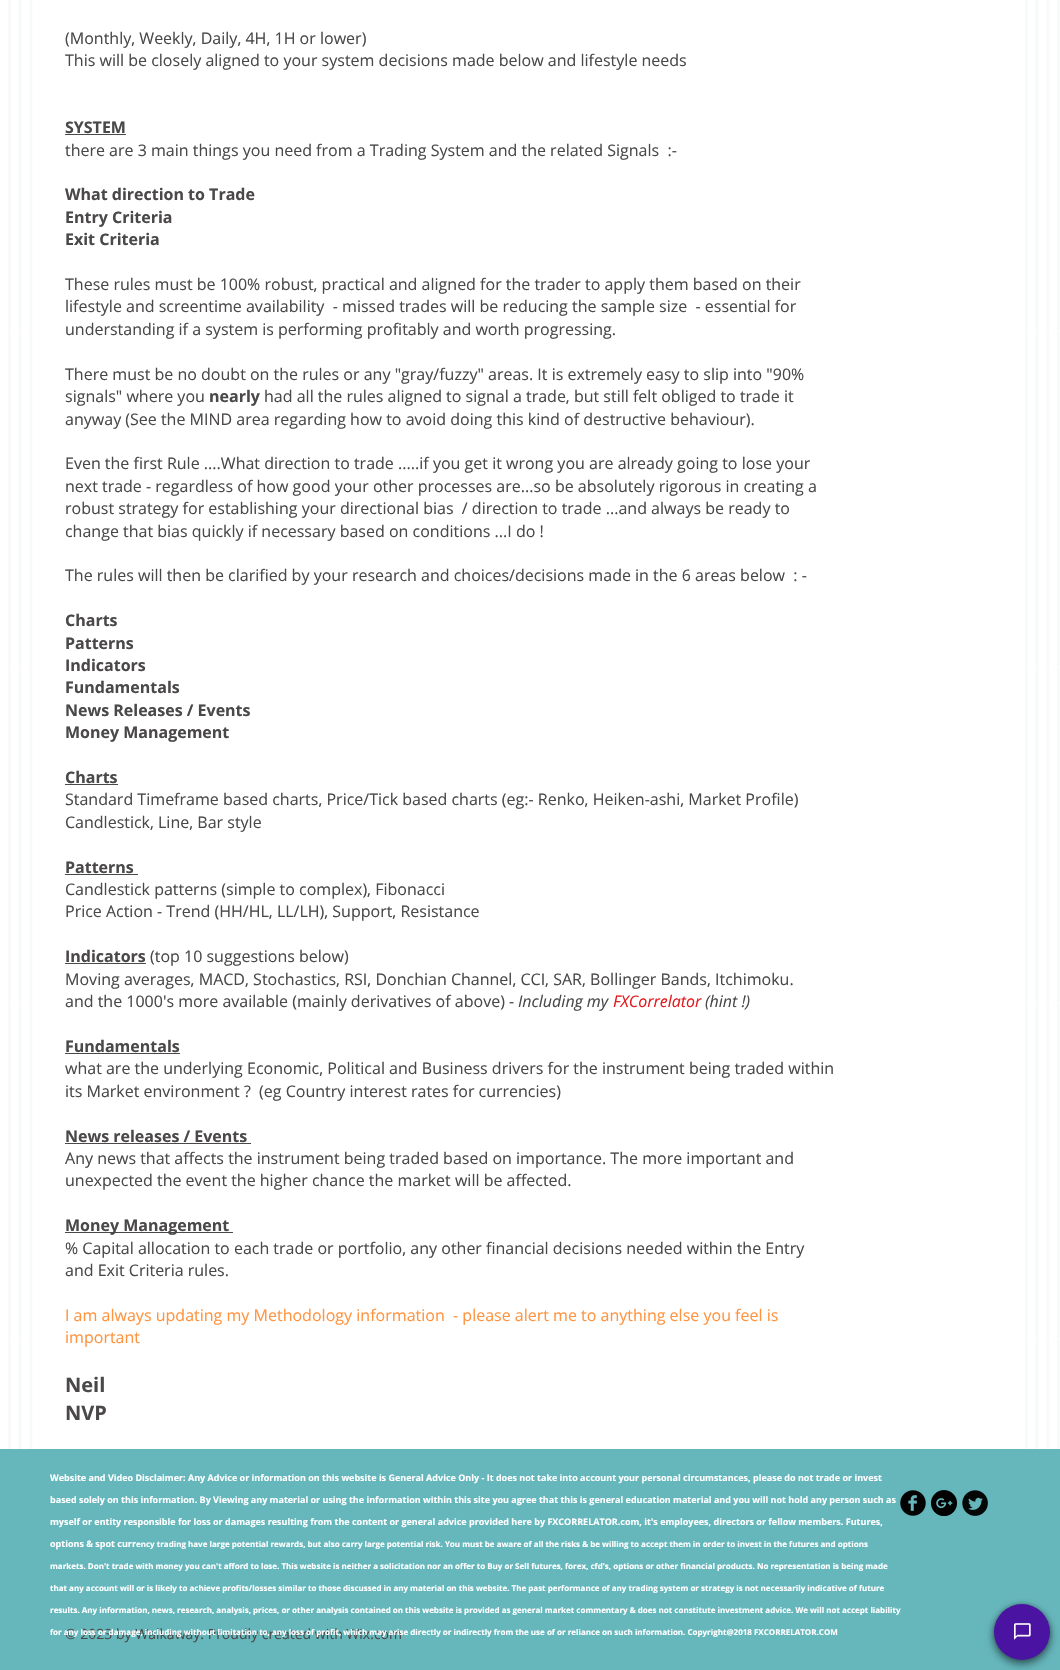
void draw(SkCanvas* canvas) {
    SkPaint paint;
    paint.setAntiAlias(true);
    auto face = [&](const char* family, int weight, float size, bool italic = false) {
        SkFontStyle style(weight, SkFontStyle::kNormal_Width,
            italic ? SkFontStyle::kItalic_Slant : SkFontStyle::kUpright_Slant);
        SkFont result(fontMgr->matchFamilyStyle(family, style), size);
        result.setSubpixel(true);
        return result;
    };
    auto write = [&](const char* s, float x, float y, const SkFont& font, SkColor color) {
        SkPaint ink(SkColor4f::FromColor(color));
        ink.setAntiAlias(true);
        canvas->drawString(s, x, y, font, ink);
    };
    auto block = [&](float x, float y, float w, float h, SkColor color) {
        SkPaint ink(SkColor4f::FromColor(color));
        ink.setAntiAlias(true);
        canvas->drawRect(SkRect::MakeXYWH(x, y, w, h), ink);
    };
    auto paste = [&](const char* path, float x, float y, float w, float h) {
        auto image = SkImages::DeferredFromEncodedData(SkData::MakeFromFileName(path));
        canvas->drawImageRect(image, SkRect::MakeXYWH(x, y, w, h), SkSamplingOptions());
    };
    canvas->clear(SK_ColorWHITE);
    paste("pic1.png", 8, 0, 1052, 1449);
    block(40, 0, 977, 1449, SK_ColorWHITE);
    auto kFont1 = face("Open Sans", 400, 16);
    write("(Monthly, Weekly, Daily, 4H, 1H or lower)", 65, 44, kFont1, SkColorSetRGB(74, 72, 72));
    write("This will be closely aligned to your system decisions made below and lifestyle needs", 65, 66, kFont1, SkColorSetRGB(74, 72, 72));
    auto kFont2 = face("Open Sans", 700, 16);
    write("SYSTEM", 65, 133, kFont2, SkColorSetRGB(74, 72, 72));
    block(65, 134, 61, 1, SkColorSetRGB(74, 72, 72));
    write("there are 3 main things you need from a Trading System and the related Signals  :-", 65, 156, kFont1, SkColorSetRGB(74, 72, 72));
    write("What direction to Trade", 65, 200, kFont2, SkColorSetRGB(74, 72, 72));
    write("Entry Criteria", 65, 223, kFont2, SkColorSetRGB(74, 72, 72));
    write("Exit Criteria", 65, 245, kFont2, SkColorSetRGB(74, 72, 72));
    write("These rules must be 100% robust, practical and aligned for the trader to apply them based on their", 65, 290, kFont1, SkColorSetRGB(74, 72, 72));
    write("lifestyle and screentime availability  - missed trades will be reducing the sample size  - essential for", 65, 312, kFont1, SkColorSetRGB(74, 72, 72));
    write("understanding if a system is performing profitably and worth progressing.", 65, 335, kFont1, SkColorSetRGB(74, 72, 72));
    write("There must be no doubt on the rules or any \"gray/fuzzy\" areas. It is extremely easy to slip into \"90%", 65, 380, kFont1, SkColorSetRGB(74, 72, 72));
    write("signals\" where you", 65, 402, kFont1, SkColorSetRGB(74, 72, 72));
    write("nearly", 209, 402, kFont2, SkColorSetRGB(74, 72, 72));
    write("had all the rules aligned to signal a trade, but still felt obliged to trade it", 264, 402, kFont1, SkColorSetRGB(74, 72, 72));
    write("anyway (See the MIND area regarding how to avoid doing this kind of destructive behaviour).", 65, 425, kFont1, SkColorSetRGB(74, 72, 72));
    write("Even the first Rule ....What direction to trade .....if you get it wrong you are already going to lose your", 65, 469, kFont1, SkColorSetRGB(74, 72, 72));
    write("next trade - regardless of how good your other processes are...so be absolutely rigorous in creating a", 65, 492, kFont1, SkColorSetRGB(74, 72, 72));
    write("robust strategy for establishing your directional bias  / direction to trade ...and always be ready to", 65, 514, kFont1, SkColorSetRGB(74, 72, 72));
    write("change that bias quickly if necessary based on conditions ...I do !", 65, 537, kFont1, SkColorSetRGB(74, 72, 72));
    write("The rules will then be clarified by your research and choices/decisions made in the 6 areas below  : -", 65, 581, kFont1, SkColorSetRGB(74, 72, 72));
    write("Charts", 65, 626, kFont2, SkColorSetRGB(74, 72, 72));
    write("Patterns", 65, 649, kFont2, SkColorSetRGB(74, 72, 72));
    write("Indicators", 65, 671, kFont2, SkColorSetRGB(74, 72, 72));
    write("Fundamentals", 65, 693, kFont2, SkColorSetRGB(74, 72, 72));
    write("News Releases / Events", 65, 716, kFont2, SkColorSetRGB(74, 72, 72));
    write("Money Management", 65, 738, kFont2, SkColorSetRGB(74, 72, 72));
    write("Charts", 65, 783, kFont2, SkColorSetRGB(74, 72, 72));
    block(65, 784, 53, 1, SkColorSetRGB(74, 72, 72));
    write("Standard Timeframe based charts, Price/Tick based charts (eg:- Renko, Heiken-ashi, Market Profile)", 65, 805, kFont1, SkColorSetRGB(74, 72, 72));
    write("Candlestick, Line, Bar style", 65, 828, kFont1, SkColorSetRGB(74, 72, 72));
    write("Patterns", 65, 873, kFont2, SkColorSetRGB(74, 72, 72));
    block(65, 874, 73, 1, SkColorSetRGB(74, 72, 72));
    write("Candlestick patterns (simple to complex), Fibonacci", 65, 895, kFont1, SkColorSetRGB(74, 72, 72));
    write("Price Action - Trend (HH/HL, LL/LH), Support, Resistance", 65, 917, kFont1, SkColorSetRGB(74, 72, 72));
    write("Indicators", 65, 962, kFont2, SkColorSetRGB(74, 72, 72));
    block(65, 963, 81, 1, SkColorSetRGB(74, 72, 72));
    write("(top 10 suggestions below)", 150, 962, kFont1, SkColorSetRGB(74, 72, 72));
    write("Moving averages, MACD, Stochastics, RSI, Donchian Channel, CCI, SAR, Bollinger Bands, Itchimoku.", 65, 985, kFont1, SkColorSetRGB(74, 72, 72));
    write("and the 1000's more available (mainly derivatives of above) -", 65, 1007, kFont1, SkColorSetRGB(74, 72, 72));
    auto kFont3 = face("Open Sans", 400, 16, true);
    write("Including my", 518, 1007, kFont3, SkColorSetRGB(74, 72, 72));
    write("FXCorrelator", 613, 1007, kFont3, SkColorSetRGB(226, 28, 33));
    write("(hint !)", 705, 1007, kFont3, SkColorSetRGB(74, 72, 72));
    write("Fundamentals", 65, 1052, kFont2, SkColorSetRGB(74, 72, 72));
    block(65, 1053, 115, 1, SkColorSetRGB(74, 72, 72));
    write("what are the underlying Economic, Political and Business drivers for the instrument being traded within", 65, 1074, kFont1, SkColorSetRGB(74, 72, 72));
    write("its Market environment ?  (eg Country interest rates for currencies)", 65, 1097, kFont1, SkColorSetRGB(74, 72, 72));
    write("News releases / Events", 65, 1142, kFont2, SkColorSetRGB(74, 72, 72));
    block(65, 1143, 186, 1, SkColorSetRGB(74, 72, 72));
    write("Any news that affects the instrument being traded based on importance. The more important and", 65, 1164, kFont1, SkColorSetRGB(74, 72, 72));
    write("unexpected the event the higher chance the market will be affected.", 65, 1186, kFont1, SkColorSetRGB(74, 72, 72));
    block(65, 1232, 168, 1, SkColorSetRGB(74, 72, 72));
    write("Money Management", 65, 1231, kFont2, SkColorSetRGB(74, 72, 72));
    write("% Capital allocation to each trade or portfolio, any other financial decisions needed within the Entry", 65, 1254, kFont1, SkColorSetRGB(74, 72, 72));
    write("and Exit Criteria rules.", 65, 1276, kFont1, SkColorSetRGB(74, 72, 72));
    write("I am always updating my Methodology information  - please alert me to anything else you feel is", 65, 1321, kFont1, SkColorSetRGB(255, 148, 64));
    write("important", 65, 1343, kFont1, SkColorSetRGB(255, 148, 64));
    auto kFont4 = face("Open Sans", 700, 20);
    write("Neil", 65, 1392, kFont4, SkColorSetRGB(74, 72, 72));
    write("NVP", 65, 1420, kFont4, SkColorSetRGB(74, 72, 72));
    block(0, 1449, 1060, 221, SkColorSetRGB(101, 183, 188));
    auto kFont5 = face("Open Sans", 700, 9);
    write("Website and Video Disclaimer: Any Advice or information on this website is General Advice Only - It does not take into account your personal circumstances, please do not trade or invest", 50, 1481, kFont5, SK_ColorWHITE);
    write("based solely on this information. By Viewing any material or using the information within this site you agree that this is general education material and you will not hold any person such as", 50, 1503, kFont5, SK_ColorWHITE);
    write("myself or entity responsible for loss or damages resulting from the content or general advice provided here by FXCORRELATOR.com, it's employees, directors or fellow members. Futures,", 50, 1525, kFont5, SK_ColorWHITE);
    write("options & spot curr", 50, 1547, kFont5, SK_ColorWHITE);
    auto kFont6 = face("Open Sans", 700, 8);
    write("ency trading have large potential rewards, but also carry large potential risk. You must be aware of all the risks & be willing to accept them in order to invest in the futures and options", 136, 1547, kFont6, SK_ColorWHITE);
    write("markets. Don't trade with money you can't afford to lose. This website is neither a solicitation nor an offer to Buy or Sell futures, forex, cfd's, options or other financial products. No representation is being made", 50, 1569, kFont6, SK_ColorWHITE);
    write("that any account will or is likely to achieve profits/losses similar to those discussed in any material on this website. The past performance of any trading system or strategy is not necessarily indicative of future", 50, 1591, kFont6, SK_ColorWHITE);
    write("results. Any information, news, research, analysis, prices, or other analysis contained on this website is provided as general market commentary & does not constitute investment advice. We will not accept liability", 50, 1613, kFont6, SK_ColorWHITE);
    auto kFont7 = face("Open Sans", 400, 14);
    write("© 2023 by Walkaway. Proudly created with Wix.com", 65, 1639, kFont7, SkColorSetRGB(74, 72, 72));
    write("for any loss or damage, including without limitation to, any loss of profit, which may arise directly or indirectly from the use of or reliance on such information. Copyright@2018 FXCORRELATOR.COM", 50, 1635, kFont6, SK_ColorWHITE);
    paste("pic2.png", 900, 1490, 26, 26);
    paste("pic3.png", 931, 1490, 26, 26);
    paste("pic4.png", 962, 1490, 26, 26);
    paint.setColor(SkColorSetARGB(71, 0, 0, 0));
    paint.setMaskFilter(SkMaskFilter::MakeBlur(kNormal_SkBlurStyle, 4));
    canvas->drawRoundRect(SkRect::MakeXYWH(994, 1608, 56, 56), 28, 28, paint);
    paint.setMaskFilter(nullptr);
    paint.setColor(SkColorSetARGB(36, 0, 0, 0));
    paint.setMaskFilter(SkMaskFilter::MakeBlur(kNormal_SkBlurStyle, 2));
    canvas->drawRoundRect(SkRect::MakeXYWH(994, 1604, 56, 56), 28, 28, paint);
    paint.setMaskFilter(nullptr);
    paint.setColor(SkColorSetARGB(71, 0, 0, 0));
    paint.setMaskFilter(SkMaskFilter::MakeBlur(kNormal_SkBlurStyle, 4));
    canvas->drawRoundRect(SkRect::MakeXYWH(994, 1608, 56, 56), 28, 28, paint);
    paint.setMaskFilter(nullptr);
    paint.setColor(SkColorSetARGB(36, 0, 0, 0));
    paint.setMaskFilter(SkMaskFilter::MakeBlur(kNormal_SkBlurStyle, 2));
    canvas->drawRoundRect(SkRect::MakeXYWH(994, 1604, 56, 56), 28, 28, paint);
    paint.setMaskFilter(nullptr);
    paint.setColor(SkColorSetRGB(74, 19, 162));
    canvas->drawCircle(1022, 1632, 28, paint);
    paste("pic5.png", 1014, 1623, 17, 17);
}
